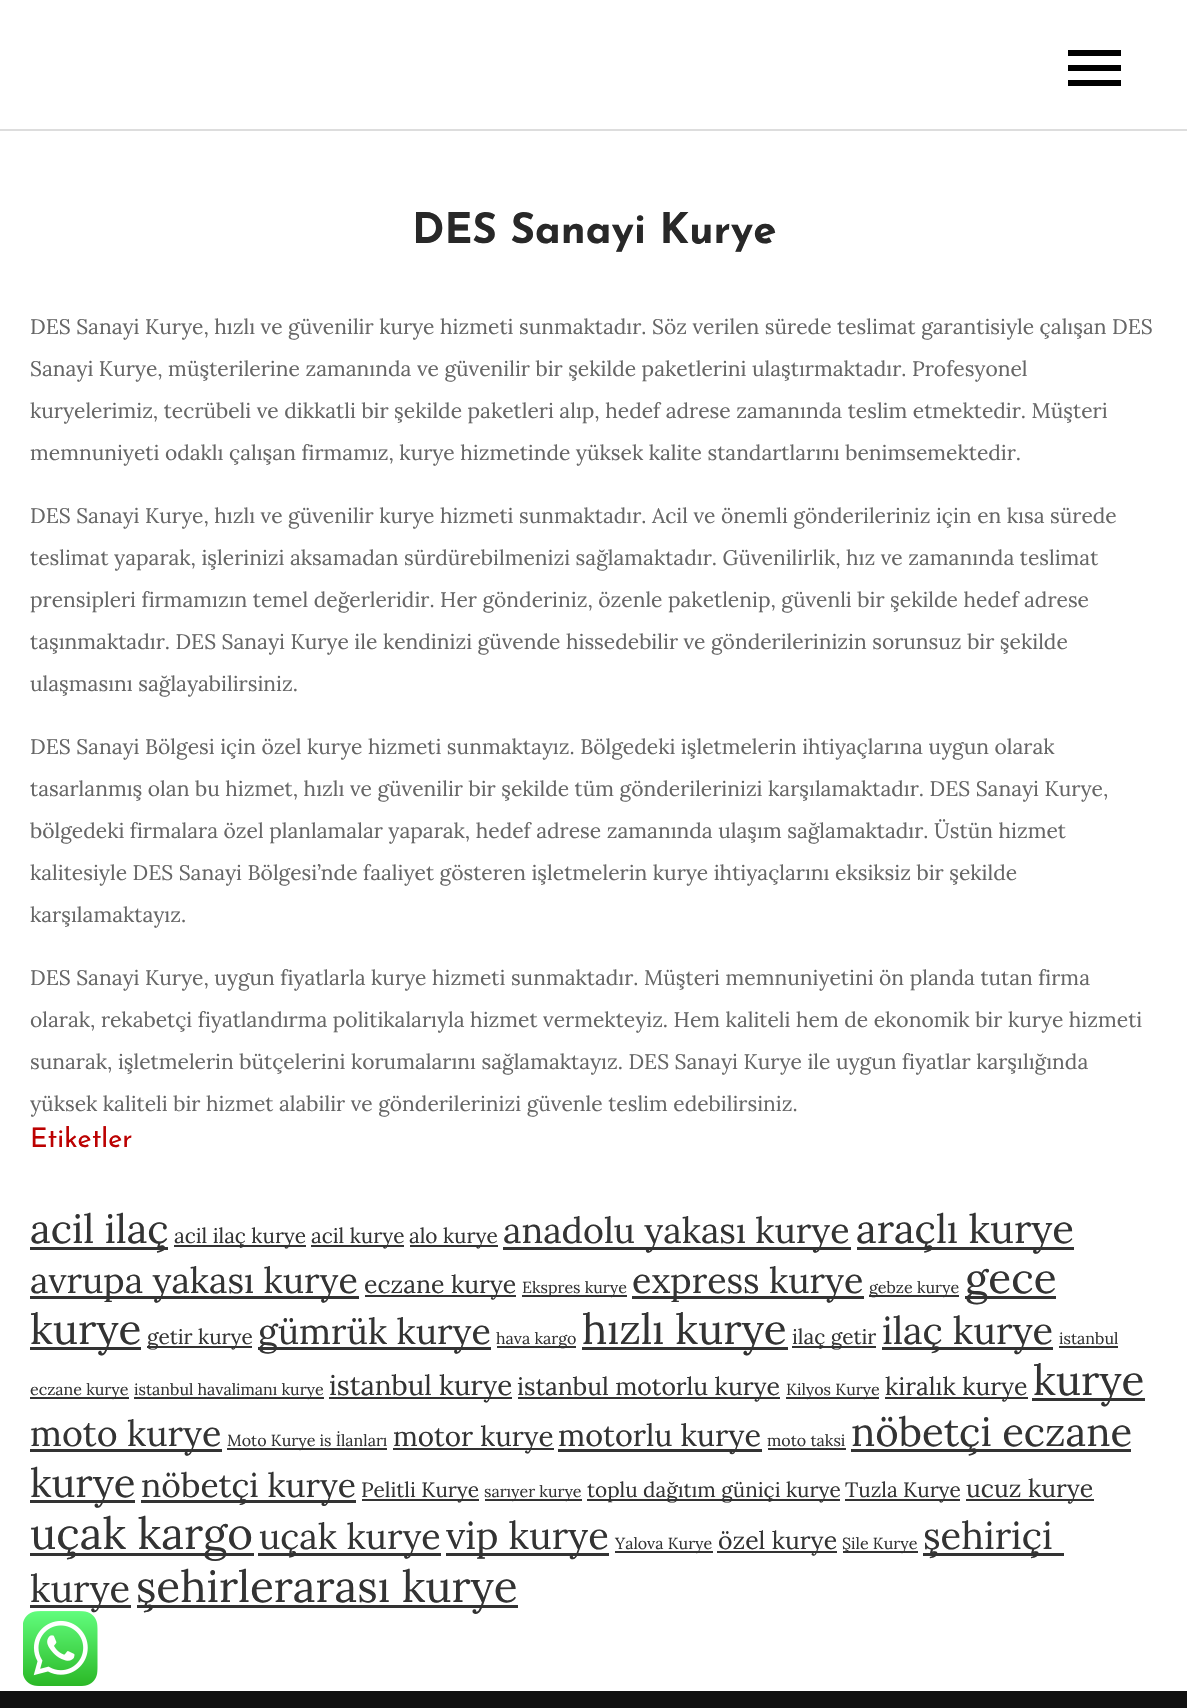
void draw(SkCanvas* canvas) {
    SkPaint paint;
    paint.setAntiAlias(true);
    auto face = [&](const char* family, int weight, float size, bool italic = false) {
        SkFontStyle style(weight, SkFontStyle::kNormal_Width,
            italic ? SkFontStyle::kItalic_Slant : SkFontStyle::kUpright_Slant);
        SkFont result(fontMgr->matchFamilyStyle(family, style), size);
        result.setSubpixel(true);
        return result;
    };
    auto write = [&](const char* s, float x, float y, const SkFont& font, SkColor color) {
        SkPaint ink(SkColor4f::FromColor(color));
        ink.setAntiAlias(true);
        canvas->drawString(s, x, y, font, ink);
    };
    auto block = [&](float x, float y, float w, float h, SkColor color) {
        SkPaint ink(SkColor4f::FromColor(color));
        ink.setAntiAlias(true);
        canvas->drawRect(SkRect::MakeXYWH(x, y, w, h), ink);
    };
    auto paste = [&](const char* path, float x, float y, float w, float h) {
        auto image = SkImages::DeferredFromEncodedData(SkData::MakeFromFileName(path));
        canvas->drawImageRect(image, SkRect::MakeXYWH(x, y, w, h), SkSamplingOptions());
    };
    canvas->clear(SK_ColorWHITE);
    block(0, 129, 1187, 2, SkColorSetRGB(221, 221, 221));
    block(1068, 65, 53, 6, SK_ColorBLACK);
    block(1068, 50, 53, 6, SK_ColorBLACK);
    block(1068, 80, 53, 6, SK_ColorBLACK);
    auto kFont1 = face("Josefin Sans", 700, 42);
    write("DES Sanayi Kurye", 412, 243, kFont1, SkColorSetRGB(40, 40, 40));
    auto kFont2 = face("Lora", 400, 21);
    write("DES Sanayi Kurye, hızlı ve güvenilir kurye hizmeti sunmaktadır. Söz verilen sürede teslimat garantisiyle çalışan DES", 30, 334, kFont2, SkColorSetRGB(102, 102, 102));
    write("Sanayi Kurye, müşterilerine zamanında ve güvenilir bir şekilde paketlerini ulaştırmaktadır. Profesyonel", 30, 376, kFont2, SkColorSetRGB(102, 102, 102));
    write("kuryelerimiz, tecrübeli ve dikkatli bir şekilde paketleri alıp, hedef adrese zamanında teslim etmektedir. Müşteri", 30, 418, kFont2, SkColorSetRGB(102, 102, 102));
    write("memnuniyeti odaklı çalışan firmamız, kurye hizmetinde yüksek kalite standartlarını benimsemektedir.", 30, 460, kFont2, SkColorSetRGB(102, 102, 102));
    write("DES Sanayi Kurye, hızlı ve güvenilir kurye hizmeti sunmaktadır. Acil ve önemli gönderileriniz için en kısa sürede", 30, 523, kFont2, SkColorSetRGB(102, 102, 102));
    write("teslimat yaparak, işlerinizi aksamadan sürdürebilmenizi sağlamaktadır. Güvenilirlik, hız ve zamanında teslimat", 30, 565, kFont2, SkColorSetRGB(102, 102, 102));
    write("prensipleri firmamızın temel değerleridir. Her gönderiniz, özenle paketlenip, güvenli bir şekilde hedef adrese", 30, 607, kFont2, SkColorSetRGB(102, 102, 102));
    write("taşınmaktadır. DES Sanayi Kurye ile kendinizi güvende hissedebilir ve gönderilerinizin sorunsuz bir şekilde", 30, 649, kFont2, SkColorSetRGB(102, 102, 102));
    write("ulaşmasını sağlayabilirsiniz.", 30, 691, kFont2, SkColorSetRGB(102, 102, 102));
    write("DES Sanayi Bölgesi için özel kurye hizmeti sunmaktayız. Bölgedeki işletmelerin ihtiyaçlarına uygun olarak", 30, 754, kFont2, SkColorSetRGB(102, 102, 102));
    write("tasarlanmış olan bu hizmet, hızlı ve güvenilir bir şekilde tüm gönderilerinizi karşılamaktadır. DES Sanayi Kurye,", 30, 796, kFont2, SkColorSetRGB(102, 102, 102));
    write("bölgedeki firmalara özel planlamalar yaparak, hedef adrese zamanında ulaşım sağlamaktadır. Üstün hizmet", 30, 838, kFont2, SkColorSetRGB(102, 102, 102));
    write("kalitesiyle DES Sanayi Bölgesi’nde faaliyet gösteren işletmelerin kurye ihtiyaçlarını eksiksiz bir şekilde", 30, 880, kFont2, SkColorSetRGB(102, 102, 102));
    write("karşılamaktayız.", 30, 922, kFont2, SkColorSetRGB(102, 102, 102));
    write("DES Sanayi Kurye, uygun fiyatlarla kurye hizmeti sunmaktadır. Müşteri memnuniyetini ön planda tutan firma", 30, 985, kFont2, SkColorSetRGB(102, 102, 102));
    write("olarak, rekabetçi fiyatlandırma politikalarıyla hizmet vermekteyiz. Hem kaliteli hem de ekonomik bir kurye hizmeti", 30, 1027, kFont2, SkColorSetRGB(102, 102, 102));
    write("sunarak, işletmelerin bütçelerini korumalarını sağlamaktayız. DES Sanayi Kurye ile uygun fiyatlar karşılığında", 30, 1069, kFont2, SkColorSetRGB(102, 102, 102));
    write("yüksek kaliteli bir hizmet alabilir ve gönderilerinizi güvenle teslim edebilirsiniz.", 30, 1111, kFont2, SkColorSetRGB(102, 102, 102));
    auto kFont3 = face("Josefin Sans", 400, 27);
    write("Etiketler", 30, 1147, kFont3, SkColorSetRGB(188, 1, 1));
    block(30, 1247, 138, 3, SkColorSetRGB(51, 51, 51));
    auto kFont4 = face("Lora", 400, 40);
    write("acil ilaç", 30, 1243, kFont4, SkColorSetRGB(51, 51, 51));
    block(174, 1245, 132, 2, SkColorSetRGB(51, 51, 51));
    auto kFont5 = face("Lora", 400, 20.75f);
    write("acil ilaç kurye", 174, 1243, kFont5, SkColorSetRGB(51, 51, 51));
    block(311, 1245, 93, 2, SkColorSetRGB(51, 51, 51));
    write("acil kurye", 311, 1243, kFont5, SkColorSetRGB(51, 51, 51));
    block(410, 1245, 88, 2, SkColorSetRGB(51, 51, 51));
    write("alo kurye", 409, 1243, kFont5, SkColorSetRGB(51, 51, 51));
    block(503, 1247, 348, 3, SkColorSetRGB(51, 51, 51));
    auto kFont6 = face("Lora", 400, 35.75f);
    write("anadolu yakası kurye", 503, 1243, kFont6, SkColorSetRGB(51, 51, 51));
    block(857, 1247, 217, 3, SkColorSetRGB(51, 51, 51));
    write("araçlı kurye", 856, 1243, kFont4, SkColorSetRGB(51, 51, 51));
    block(30, 1296, 329, 3, SkColorSetRGB(51, 51, 51));
    write("avrupa yakası kurye", 30, 1293, kFont6, SkColorSetRGB(51, 51, 51));
    block(365, 1295, 151, 2, SkColorSetRGB(51, 51, 51));
    auto kFont7 = face("Lora", 400, 24.75f);
    write("eczane kurye", 364, 1293, kFont7, SkColorSetRGB(51, 51, 51));
    block(522, 1295, 105, 2, SkColorSetRGB(51, 51, 51));
    auto kFont8 = face("Lora", 400, 16);
    write("Ekspres kurye", 522, 1293, kFont8, SkColorSetRGB(51, 51, 51));
    block(632, 1296, 232, 3, SkColorSetRGB(51, 51, 51));
    write("express kurye", 632, 1293, kFont6, SkColorSetRGB(51, 51, 51));
    block(869, 1295, 90, 2, SkColorSetRGB(51, 51, 51));
    write("gebze kurye", 869, 1293, kFont8, SkColorSetRGB(51, 51, 51));
    block(965, 1296, 91, 3, SkColorSetRGB(51, 51, 51));
    auto kFont9 = face("Lora", 400, 42.25f);
    write("gece", 965, 1293, kFont9, SkColorSetRGB(51, 51, 51));
    block(30, 1347, 111, 3, SkColorSetRGB(51, 51, 51));
    write("kurye", 30, 1344, kFont9, SkColorSetRGB(51, 51, 51));
    block(147, 1346, 105, 2, SkColorSetRGB(51, 51, 51));
    write("getir kurye", 147, 1344, kFont5, SkColorSetRGB(51, 51, 51));
    block(258, 1347, 233, 3, SkColorSetRGB(51, 51, 51));
    write("gümrük kurye", 258, 1344, kFont6, SkColorSetRGB(51, 51, 51));
    block(497, 1346, 79, 2, SkColorSetRGB(51, 51, 51));
    write("hava kargo", 496, 1344, kFont8, SkColorSetRGB(51, 51, 51));
    block(582, 1347, 206, 3, SkColorSetRGB(51, 51, 51));
    write("hızlı kurye", 582, 1344, kFont9, SkColorSetRGB(51, 51, 51));
    block(792, 1346, 84, 2, SkColorSetRGB(51, 51, 51));
    write("ilaç getir", 792, 1344, kFont5, SkColorSetRGB(51, 51, 51));
    block(882, 1347, 171, 3, SkColorSetRGB(51, 51, 51));
    auto kFont10 = face("Lora", 400, 38);
    write("ilaç kurye", 882, 1344, kFont10, SkColorSetRGB(51, 51, 51));
    write("istanbul", 1059, 1344, kFont8, SkColorSetRGB(51, 51, 51));
    block(1059, 1346, 59, 2, SkColorSetRGB(51, 51, 51));
    block(30, 1397, 99, 2, SkColorSetRGB(51, 51, 51));
    write("eczane kurye", 30, 1395, kFont8, SkColorSetRGB(51, 51, 51));
    block(134, 1397, 190, 2, SkColorSetRGB(51, 51, 51));
    write("istanbul havalimanı kurye", 134, 1395, kFont8, SkColorSetRGB(51, 51, 51));
    block(329, 1397, 183, 2, SkColorSetRGB(51, 51, 51));
    auto kFont11 = face("Lora", 400, 27.75f);
    write("istanbul kurye", 329, 1395, kFont11, SkColorSetRGB(51, 51, 51));
    block(518, 1397, 262, 2, SkColorSetRGB(51, 51, 51));
    write("istanbul motorlu kurye", 517, 1395, kFont7, SkColorSetRGB(51, 51, 51));
    block(786, 1397, 93, 2, SkColorSetRGB(51, 51, 51));
    write("Kilyos Kurye", 786, 1395, kFont8, SkColorSetRGB(51, 51, 51));
    block(885, 1397, 143, 2, SkColorSetRGB(51, 51, 51));
    write("kiralık kurye", 885, 1395, kFont7, SkColorSetRGB(51, 51, 51));
    block(1032, 1398, 113, 3, SkColorSetRGB(51, 51, 51));
    write("kurye", 1033, 1395, kFont9, SkColorSetRGB(51, 51, 51));
    block(30, 1449, 192, 3, SkColorSetRGB(51, 51, 51));
    write("moto kurye", 30, 1446, kFont6, SkColorSetRGB(51, 51, 51));
    block(227, 1448, 160, 2, SkColorSetRGB(51, 51, 51));
    write("Moto Kurye is İlanları", 227, 1446, kFont8, SkColorSetRGB(51, 51, 51));
    block(393, 1448, 161, 2, SkColorSetRGB(51, 51, 51));
    write("motor kurye", 393, 1446, kFont11, SkColorSetRGB(51, 51, 51));
    block(558, 1449, 204, 3, SkColorSetRGB(51, 51, 51));
    auto kFont12 = face("Lora", 400, 30.5f);
    write("motorlu kurye", 558, 1446, kFont12, SkColorSetRGB(51, 51, 51));
    write("moto taksi", 767, 1446, kFont8, SkColorSetRGB(51, 51, 51));
    block(768, 1448, 78, 2, SkColorSetRGB(51, 51, 51));
    block(851, 1449, 280, 3, SkColorSetRGB(51, 51, 51));
    write("nöbetçi eczane", 851, 1446, kFont4, SkColorSetRGB(51, 51, 51));
    block(30, 1500, 105, 3, SkColorSetRGB(51, 51, 51));
    write("kurye", 30, 1497, kFont4, SkColorSetRGB(51, 51, 51));
    block(141, 1500, 215, 3, SkColorSetRGB(51, 51, 51));
    auto kFont13 = face("Lora", 400, 33.5f);
    write("nöbetçi kurye", 141, 1497, kFont13, SkColorSetRGB(51, 51, 51));
    block(362, 1499, 117, 2, SkColorSetRGB(51, 51, 51));
    write("Pelitli Kurye", 361, 1497, kFont5, SkColorSetRGB(51, 51, 51));
    block(485, 1499, 97, 2, SkColorSetRGB(51, 51, 51));
    write("sarıyer kurye", 484, 1497, kFont8, SkColorSetRGB(51, 51, 51));
    block(587, 1499, 253, 2, SkColorSetRGB(51, 51, 51));
    write("toplu dağıtım güniçi kurye", 587, 1497, kFont5, SkColorSetRGB(51, 51, 51));
    block(845, 1499, 115, 2, SkColorSetRGB(51, 51, 51));
    write("Tuzla Kurye", 845, 1497, kFont5, SkColorSetRGB(51, 51, 51));
    block(966, 1499, 128, 2, SkColorSetRGB(51, 51, 51));
    write("ucuz kurye", 966, 1497, kFont7, SkColorSetRGB(51, 51, 51));
    block(30, 1553, 224, 3, SkColorSetRGB(51, 51, 51));
    auto kFont14 = face("Lora", 400, 44);
    write("uçak kargo", 30, 1549, kFont14, SkColorSetRGB(51, 51, 51));
    block(258, 1553, 183, 3, SkColorSetRGB(51, 51, 51));
    write("uçak kurye", 259, 1549, kFont6, SkColorSetRGB(51, 51, 51));
    block(446, 1553, 163, 3, SkColorSetRGB(51, 51, 51));
    write("vip kurye", 446, 1549, kFont10, SkColorSetRGB(51, 51, 51));
    block(615, 1551, 98, 2, SkColorSetRGB(51, 51, 51));
    write("Yalova Kurye", 615, 1549, kFont8, SkColorSetRGB(51, 51, 51));
    block(717, 1551, 120, 2, SkColorSetRGB(51, 51, 51));
    write("özel kurye", 718, 1549, kFont7, SkColorSetRGB(51, 51, 51));
    block(843, 1551, 75, 2, SkColorSetRGB(51, 51, 51));
    write("Şile Kurye", 842, 1549, kFont8, SkColorSetRGB(51, 51, 51));
    block(923, 1553, 141, 3, SkColorSetRGB(51, 51, 51));
    write("şehiriçi", 923, 1549, kFont10, SkColorSetRGB(51, 51, 51));
    block(30, 1605, 101, 3, SkColorSetRGB(51, 51, 51));
    write("kurye", 30, 1602, kFont10, SkColorSetRGB(51, 51, 51));
    block(137, 1605, 381, 3, SkColorSetRGB(51, 51, 51));
    write("şehirlerarası kurye", 136, 1602, kFont14, SkColorSetRGB(51, 51, 51));
    paste("pic1.png", 23, 1611, 75, 75);
    block(0, 1691, 1187, 17, SkColorSetRGB(17, 17, 17));
}
